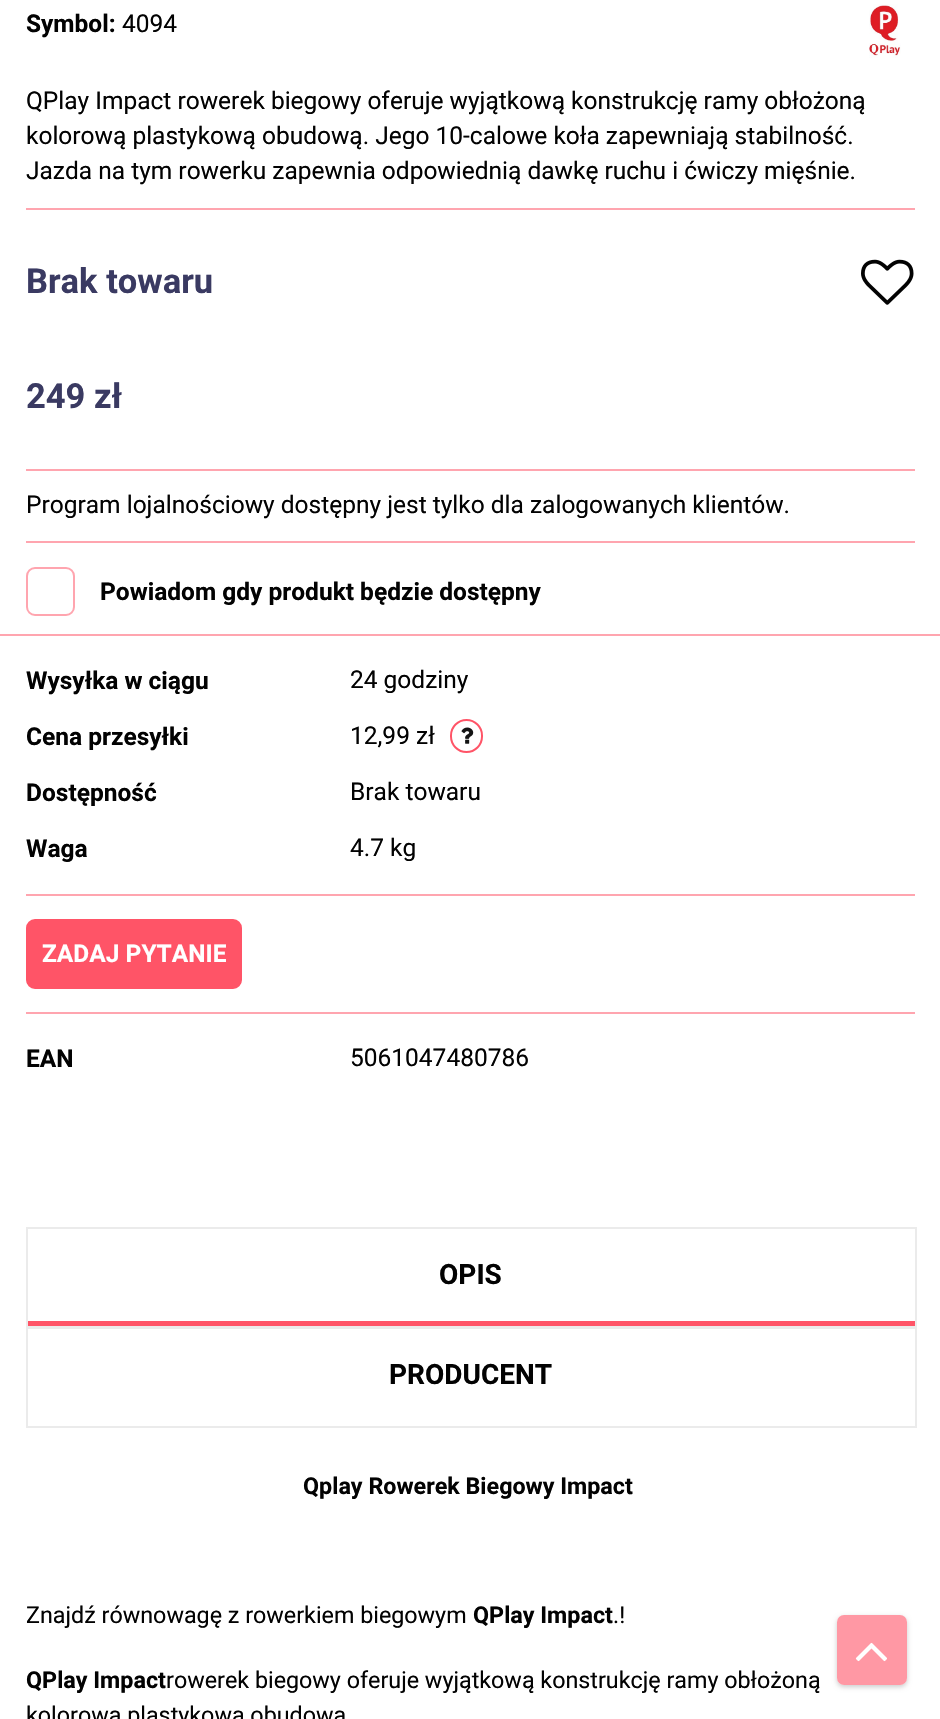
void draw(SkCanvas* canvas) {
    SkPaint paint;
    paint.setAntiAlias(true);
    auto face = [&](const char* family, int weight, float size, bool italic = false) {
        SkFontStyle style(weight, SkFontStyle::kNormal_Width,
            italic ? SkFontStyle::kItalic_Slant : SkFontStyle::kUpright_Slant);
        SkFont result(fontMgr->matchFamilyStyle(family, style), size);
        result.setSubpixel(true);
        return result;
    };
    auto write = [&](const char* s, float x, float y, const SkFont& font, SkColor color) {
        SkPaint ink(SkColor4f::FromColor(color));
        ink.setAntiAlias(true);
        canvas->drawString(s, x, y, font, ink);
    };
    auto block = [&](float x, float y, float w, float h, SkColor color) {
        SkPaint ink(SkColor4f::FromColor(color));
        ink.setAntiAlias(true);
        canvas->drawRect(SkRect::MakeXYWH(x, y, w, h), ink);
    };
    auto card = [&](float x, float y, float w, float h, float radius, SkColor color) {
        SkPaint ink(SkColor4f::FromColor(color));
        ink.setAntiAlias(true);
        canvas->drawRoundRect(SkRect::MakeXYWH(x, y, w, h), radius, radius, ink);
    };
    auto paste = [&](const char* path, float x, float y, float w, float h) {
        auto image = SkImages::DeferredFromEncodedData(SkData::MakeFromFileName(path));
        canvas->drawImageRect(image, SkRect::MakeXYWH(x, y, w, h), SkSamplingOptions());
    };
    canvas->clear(SK_ColorWHITE);
    block(26, 208, 889, 2, SkColorSetRGB(255, 165, 175));
    auto kFont1 = face("Roboto", 700, 24.5f);
    write("Symbol:", 26, 32, kFont1, SkColorSetRGB(2, 2, 2));
    auto kFont2 = face("Roboto", 400, 24.5f);
    write("4094", 122, 32, kFont2, SkColorSetRGB(2, 2, 2));
    paste("pic1.png", 869, 4, 32, 54);
    write("QPlay Impact rowerek biegowy oferuje wyjątkową konstrukcję ramy obłożoną", 26, 109, kFont2, SkColorSetRGB(2, 2, 2));
    write("kolorową plastykową obudową. Jego 10-calowe koła zapewniają stabilność.", 26, 144, kFont2, SkColorSetRGB(2, 2, 2));
    write("Jazda na tym rowerku zapewnia odpowiednią dawkę ruchu i ćwiczy mięśnie.", 26, 179, kFont2, SkColorSetRGB(2, 2, 2));
    block(26, 469, 889, 2, SkColorSetRGB(255, 165, 175));
    auto kFont3 = face("Roboto", 700, 34.5f);
    write("Brak towaru", 26, 293, kFont3, SkColorSetRGB(58, 58, 98));
    write("249 zł", 26, 408, kFont3, SkColorSetRGB(58, 58, 98));
    paste("pic2.png", 861, 259, 53, 46);
    block(26, 541, 889, 2, SkColorSetRGB(255, 165, 175));
    write("Program lojalnościowy dostępny jest tylko dla zalogowanych klientów.", 26, 513, kFont2, SkColorSetRGB(2, 2, 2));
    block(0, 634, 940, 2, SkColorSetRGB(255, 165, 175));
    paint.setStyle(SkPaint::kStroke_Style);
    paint.setStrokeWidth(2);
    paint.setColor(SkColorSetRGB(255, 165, 175));
    canvas->drawRoundRect(SkRect::MakeXYWH(27, 568, 47, 47), 8, 8, paint);
    write("Powiadom gdy produkt będzie dostępny", 100, 600, kFont1, SkColorSetRGB(2, 2, 2));
    block(26, 894, 889, 2, SkColorSetRGB(255, 165, 175));
    write("Wysyłka w ciągu", 26, 689, kFont1, SkColorSetRGB(2, 2, 2));
    write("24 godziny", 350, 688, kFont2, SkColorSetRGB(2, 2, 2));
    write("Cena przesyłki", 26, 745, kFont1, SkColorSetRGB(2, 2, 2));
    write("12,99 zł", 350, 744, kFont2, SkColorSetRGB(2, 2, 2));
    paint.setColor(SkColorSetRGB(255, 84, 103));
    canvas->drawRoundRect(SkRect::MakeXYWH(451, 720, 31, 32), 15.5f, 15.5f, paint);
    paste("pic3.png", 461, 727, 13, 17);
    write("Dostępność", 26, 801, kFont1, SkColorSetRGB(2, 2, 2));
    write("Brak towaru", 350, 800, kFont2, SkColorSetRGB(2, 2, 2));
    write("Waga", 26, 857, kFont1, SkColorSetRGB(2, 2, 2));
    write("4.7 kg", 350, 856, kFont2, SkColorSetRGB(2, 2, 2));
    block(26, 1012, 889, 2, SkColorSetRGB(255, 165, 175));
    paint.setStyle(SkPaint::kFill_Style);
    canvas->drawRoundRect(SkRect::MakeXYWH(28, 921, 212, 66), 7, 7, paint);
    paint.setStyle(SkPaint::kStroke_Style);
    paint.setStrokeWidth(4);
    canvas->drawRoundRect(SkRect::MakeXYWH(28, 921, 212, 66), 7, 7, paint);
    write("ZADAJ PYTANIE", 42, 962, kFont1, SK_ColorWHITE);
    write("EAN", 26, 1067, kFont1, SkColorSetRGB(2, 2, 2));
    write("5061047480786", 350, 1066, kFont2, SkColorSetRGB(2, 2, 2));
    paint.setStyle(SkPaint::kFill_Style);
    paint.setColor(SkColorSetRGB(235, 235, 235));
    canvas->drawPath(SkPathBuilder().moveTo(28, 1326).lineTo(28, 1328).lineTo(917, 1328).lineTo(917, 1229).lineTo(915, 1229).lineTo(915, 1326).close().detach(), paint);
    canvas->drawPath(SkPathBuilder().moveTo(28, 1326).lineTo(28, 1327).lineTo(917, 1327).lineTo(917, 1227).lineTo(915, 1227).lineTo(915, 1326).close().detach(), paint);
    block(26, 1227, 889, 2, SkColorSetRGB(235, 235, 235));
    block(26, 1227, 2, 100, SkColorSetRGB(235, 235, 235));
    auto kFont4 = face("Roboto", 700, 28);
    write("OPIS", 439, 1284, kFont4, SkColorSetRGB(2, 2, 2));
    block(28, 1321, 887, 5, SkColorSetRGB(255, 84, 103));
    canvas->drawPath(SkPathBuilder().moveTo(28, 1426).lineTo(28, 1428).lineTo(917, 1428).lineTo(917, 1328).lineTo(915, 1328).lineTo(915, 1426).close().detach(), paint);
    canvas->drawPath(SkPathBuilder().moveTo(26, 1328).lineTo(26, 1428).lineTo(915, 1428).lineTo(915, 1426).lineTo(26, 1426).close().detach(), paint);
    block(26, 1327, 889, 2, SkColorSetRGB(235, 235, 235));
    block(26, 1327, 2, 99, SkColorSetRGB(235, 235, 235));
    write("PRODUCENT", 389, 1384, kFont4, SkColorSetRGB(2, 2, 2));
    auto kFont5 = face("Roboto", 700, 23.3f);
    write("Qplay Rowerek Biegowy Impact", 303, 1494, kFont5, SkColorSetRGB(2, 2, 2));
    auto kFont6 = face("Roboto", 400, 23.3f);
    write("Znajdź równowagę z rowerkiem biegowym", 26, 1623, kFont6, SkColorSetRGB(2, 2, 2));
    write("QPlay Impact", 473, 1623, kFont5, SkColorSetRGB(2, 2, 2));
    write(".!", 613, 1623, kFont6, SkColorSetRGB(2, 2, 2));
    write("QPlay Impact", 26, 1688, kFont5, SkColorSetRGB(2, 2, 2));
    write("rowerek biegowy oferuje wyjątkową konstrukcję ramy obłożoną", 166, 1688, kFont6, SkColorSetRGB(2, 2, 2));
    write("kolorową plastykową obudową", 26, 1723, kFont6, SkColorSetRGB(2, 2, 2));
    canvas->save();
    canvas->clipPath(SkPathBuilder(SkPathFillType::kEvenOdd).moveTo(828, 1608).lineTo(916, 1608).lineTo(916, 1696).lineTo(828, 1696).close().moveTo(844, 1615).lineTo(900, 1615).cubicTo(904, 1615, 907, 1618, 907, 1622).lineTo(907, 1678).cubicTo(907, 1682, 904, 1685, 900, 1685).lineTo(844, 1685).cubicTo(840, 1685, 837, 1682, 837, 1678).lineTo(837, 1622).cubicTo(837, 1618, 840, 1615, 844, 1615).close().detach(), true);
    paint.setColor(SkColorSetARGB(51, 0, 0, 0));
    paint.setMaskFilter(SkMaskFilter::MakeBlur(kNormal_SkBlurStyle, 2.5f));
    canvas->drawRoundRect(SkRect::MakeXYWH(837, 1617, 70, 70), 7, 7, paint);
    paint.setMaskFilter(nullptr);
    canvas->restore();
    card(837, 1615, 70, 70, 7, SkColorSetARGB(153, 255, 84, 103));
    paste("pic4.png", 855, 1642, 32, 20);
}
